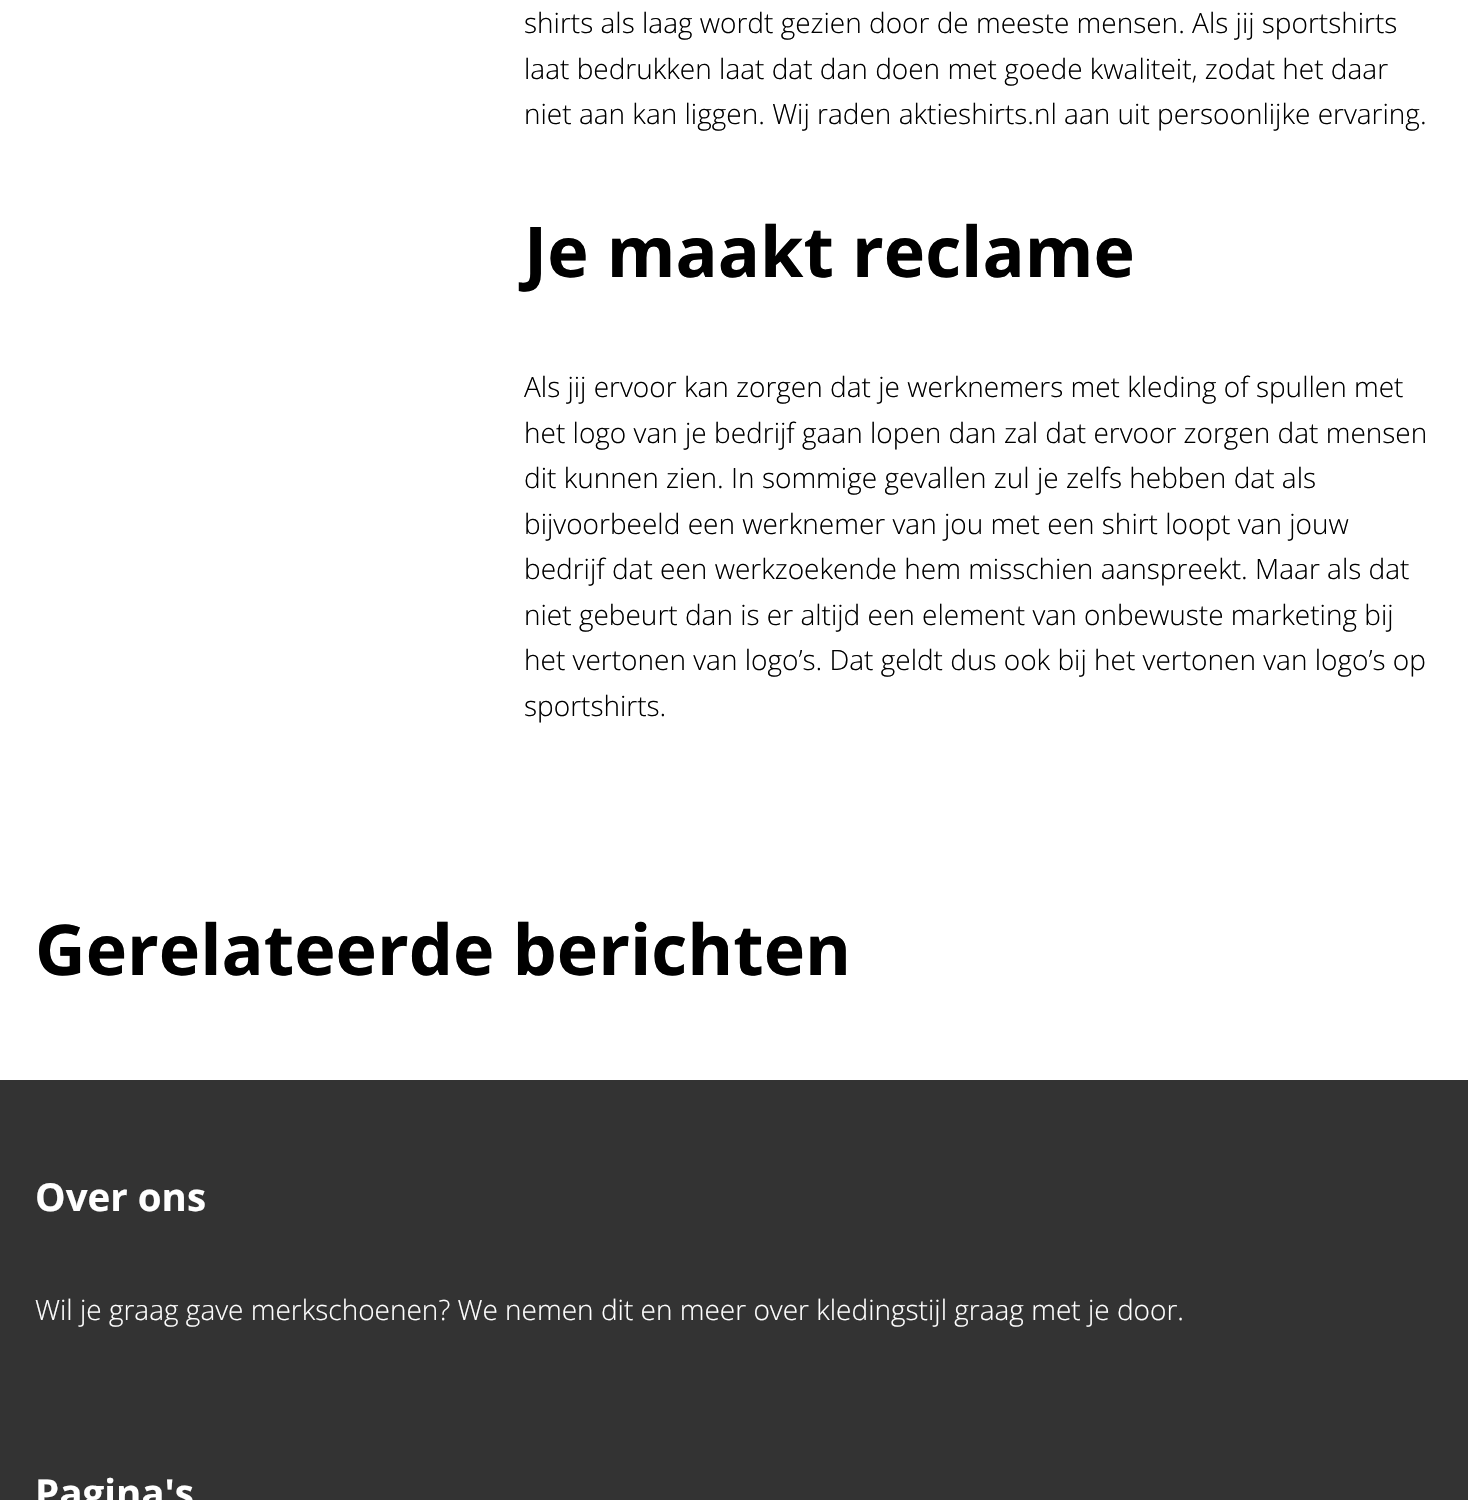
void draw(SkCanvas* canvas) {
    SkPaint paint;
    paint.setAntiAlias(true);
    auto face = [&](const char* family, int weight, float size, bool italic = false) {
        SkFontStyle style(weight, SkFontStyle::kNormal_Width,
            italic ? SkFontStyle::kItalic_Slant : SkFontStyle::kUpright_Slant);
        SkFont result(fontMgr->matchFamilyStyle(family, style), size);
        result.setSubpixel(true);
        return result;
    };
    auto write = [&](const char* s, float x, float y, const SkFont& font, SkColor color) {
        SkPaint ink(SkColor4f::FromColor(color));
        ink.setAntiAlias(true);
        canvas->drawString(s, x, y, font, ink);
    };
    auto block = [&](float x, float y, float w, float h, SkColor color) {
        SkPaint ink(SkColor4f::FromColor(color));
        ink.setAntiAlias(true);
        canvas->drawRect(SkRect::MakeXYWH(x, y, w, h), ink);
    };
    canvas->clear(SK_ColorWHITE);
    auto kFont1 = face("Open Sans", 300, 28);
    write("shirts als laag wordt gezien door de meeste mensen. Als jij sportshirts", 524, 33, kFont1, SK_ColorBLACK);
    write("laat bedrukken laat dat dan doen met goede kwaliteit, zodat het daar", 524, 79, kFont1, SK_ColorBLACK);
    write("niet aan kan liggen. Wij raden aktieshirts.nl aan uit persoonlijke ervaring.", 524, 124, kFont1, SK_ColorBLACK);
    auto kFont2 = face("Open Sans", 700, 70);
    write("Je maakt reclame", 524, 277, kFont2, SK_ColorBLACK);
    write("Als jij ervoor kan zorgen dat je werknemers met kleding of spullen met", 524, 397, kFont1, SK_ColorBLACK);
    write("het logo van je bedrijf gaan lopen dan zal dat ervoor zorgen dat mensen", 524, 443, kFont1, SK_ColorBLACK);
    write("dit kunnen zien. In sommige gevallen zul je zelfs hebben dat als", 524, 488, kFont1, SK_ColorBLACK);
    write("bijvoorbeeld een werknemer van jou met een shirt loopt van jouw", 524, 534, kFont1, SK_ColorBLACK);
    write("bedrijf dat een werkzoekende hem misschien aanspreekt. Maar als dat", 524, 579, kFont1, SK_ColorBLACK);
    write("niet gebeurt dan is er altijd een element van onbewuste marketing bij", 524, 625, kFont1, SK_ColorBLACK);
    write("het vertonen van logo’s. Dat geldt dus ook bij het vertonen van logo’s op", 524, 670, kFont1, SK_ColorBLACK);
    write("sportshirts.", 524, 716, kFont1, SK_ColorBLACK);
    write("Gerelateerde berichten", 35, 975, kFont2, SK_ColorBLACK);
    block(0, 1080, 1468, 420, SkColorSetRGB(51, 51, 51));
    auto kFont3 = face("Open Sans", 700, 38.5f);
    write("Over ons", 35, 1211, kFont3, SK_ColorWHITE);
    write("Wil je graag gave merkschoenen? We nemen dit en meer over kledingstijl graag met je door.", 35, 1320, kFont1, SK_ColorWHITE);
    write("Pagina's", 35, 1507, kFont3, SK_ColorWHITE);
}
